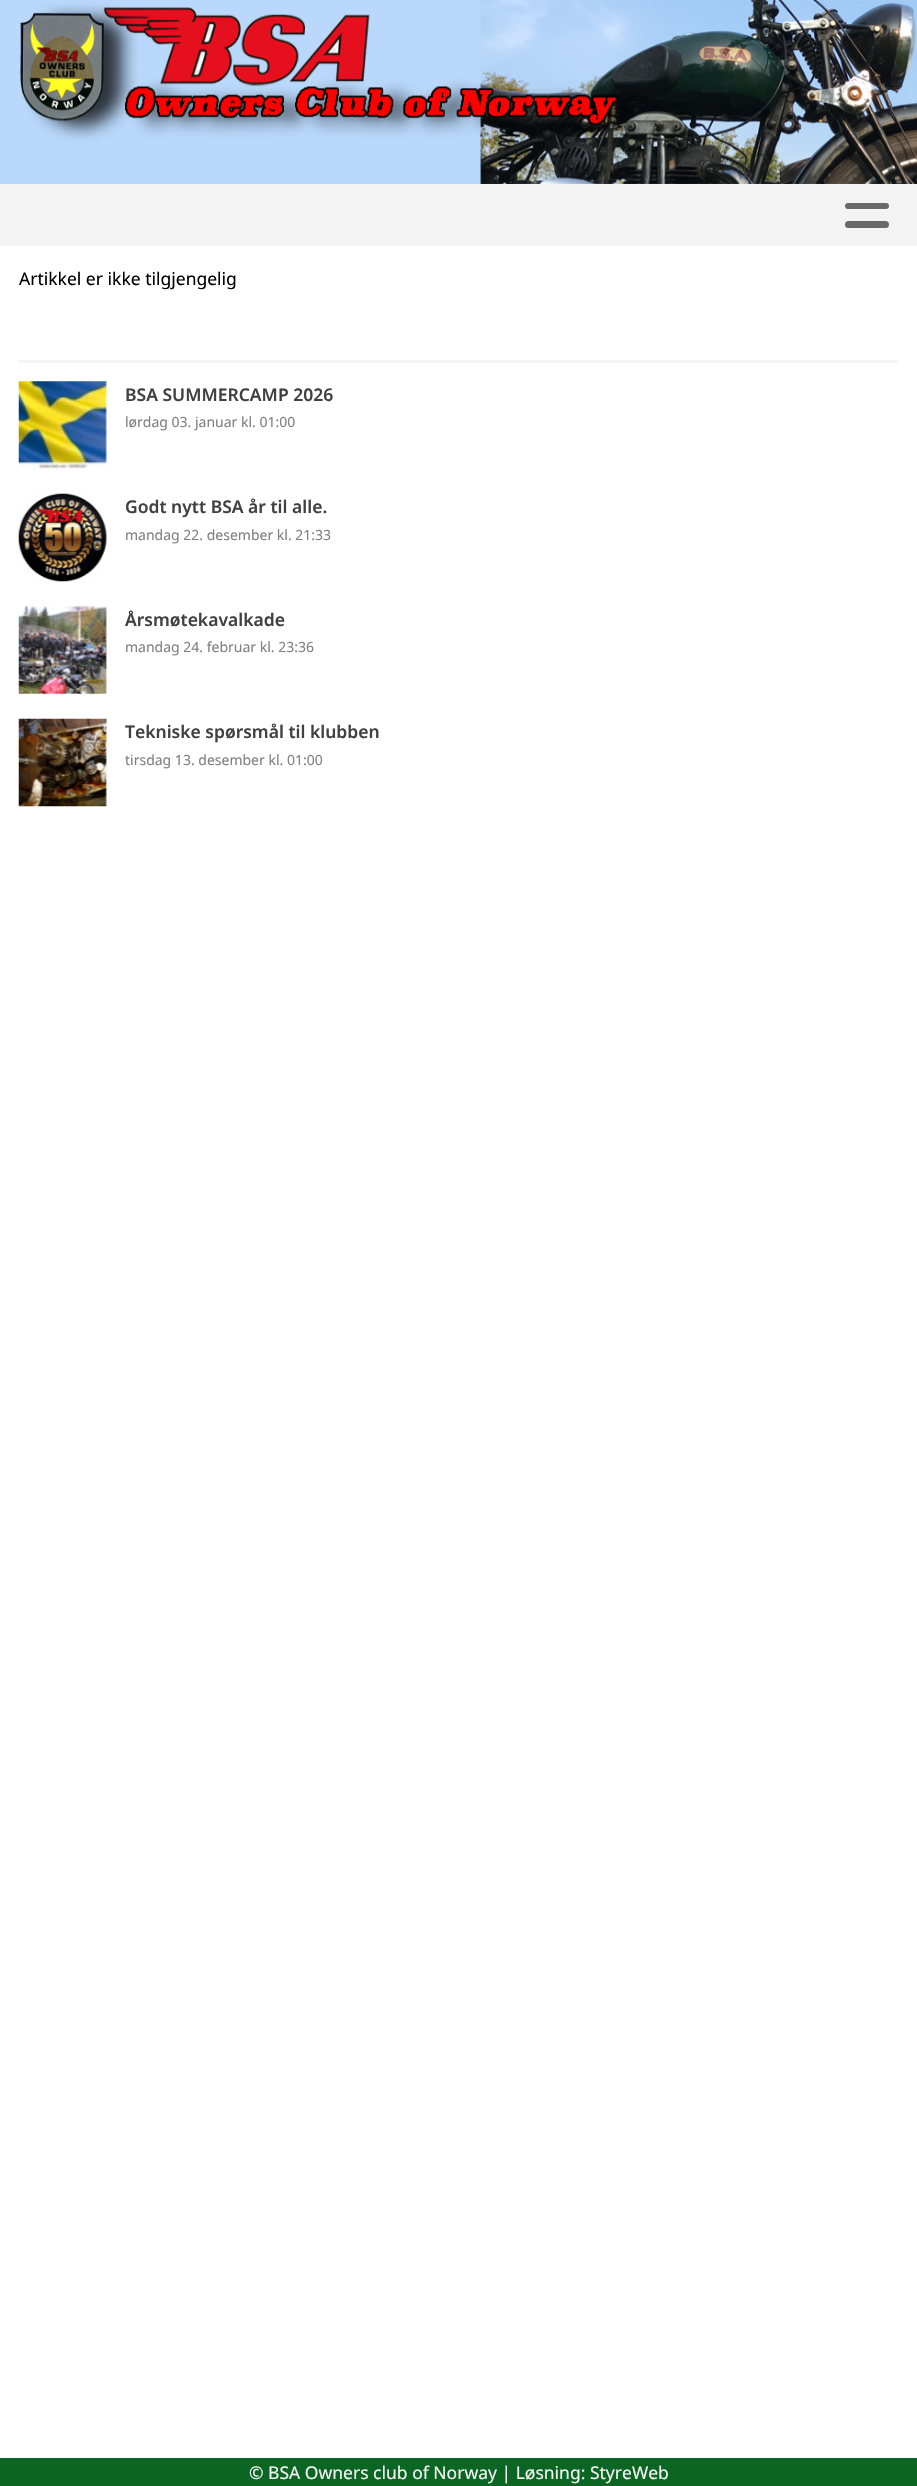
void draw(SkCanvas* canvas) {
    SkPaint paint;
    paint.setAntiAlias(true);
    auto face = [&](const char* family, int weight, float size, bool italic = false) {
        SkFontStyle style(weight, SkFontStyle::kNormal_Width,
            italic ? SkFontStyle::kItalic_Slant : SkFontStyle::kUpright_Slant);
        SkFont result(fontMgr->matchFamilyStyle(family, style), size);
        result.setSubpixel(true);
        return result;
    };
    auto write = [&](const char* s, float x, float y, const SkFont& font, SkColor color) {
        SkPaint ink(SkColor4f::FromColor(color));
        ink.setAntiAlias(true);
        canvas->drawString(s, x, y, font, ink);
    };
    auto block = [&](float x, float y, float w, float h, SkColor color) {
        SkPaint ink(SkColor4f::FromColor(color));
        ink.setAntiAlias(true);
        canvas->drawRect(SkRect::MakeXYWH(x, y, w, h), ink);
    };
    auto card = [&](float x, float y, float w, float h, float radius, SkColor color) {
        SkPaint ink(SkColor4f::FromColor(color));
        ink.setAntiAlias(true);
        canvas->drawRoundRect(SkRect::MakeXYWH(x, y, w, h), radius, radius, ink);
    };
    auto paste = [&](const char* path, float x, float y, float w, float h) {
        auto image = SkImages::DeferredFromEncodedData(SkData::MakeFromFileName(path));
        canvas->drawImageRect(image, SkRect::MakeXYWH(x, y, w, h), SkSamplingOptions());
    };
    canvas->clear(SK_ColorWHITE);
    paste("pic1.png", 0, 0, 917, 184);
    block(0, 184, 917, 62, SkColorSetRGB(243, 243, 243));
    card(845, 203, 44, 6, 3, SkColorSetRGB(105, 105, 105));
    card(845, 221, 44, 7, 3.5f, SkColorSetRGB(105, 105, 105));
    auto kFont1 = face("Noto Sans", 400, 17.5f);
    write("Artikkel er ikke tilgjengelig", 19, 285, kFont1, SK_ColorBLACK);
    block(19, 360, 880, 3, SkColorSetRGB(245, 245, 245));
    paste("pic2.png", 18, 381, 89, 88);
    auto kFont2 = face("Noto Sans", 600, 17.5f);
    write("BSA SUMMERCAMP 2026", 125, 401, kFont2, SkColorSetRGB(65, 65, 65));
    auto kFont3 = face("Noto Sans", 400, 14);
    write("lørdag 03. januar kl. 01:00", 125, 427, kFont3, SkColorSetRGB(128, 128, 128));
    paste("pic3.png", 18, 493, 89, 89);
    write("Godt nytt BSA år til alle.", 125, 513, kFont2, SkColorSetRGB(65, 65, 65));
    write("mandag 22. desember kl. 21:33", 125, 540, kFont3, SkColorSetRGB(128, 128, 128));
    paste("pic4.png", 18, 606, 89, 88);
    write("Årsmøtekavalkade", 125, 626, kFont2, SkColorSetRGB(65, 65, 65));
    write("mandag 24. februar kl. 23:36", 125, 652, kFont3, SkColorSetRGB(128, 128, 128));
    paste("pic5.png", 18, 718, 89, 89);
    write("Tekniske spørsmål til klubben", 125, 738, kFont2, SkColorSetRGB(65, 65, 65));
    write("tirsdag 13. desember kl. 01:00", 125, 765, kFont3, SkColorSetRGB(128, 128, 128));
    block(0, 2458, 917, 28, SkColorSetRGB(11, 102, 35));
    write("© BSA Owners club of Norway | Løsning: StyreWeb", 249, 2479, kFont1, SkColorSetRGB(245, 245, 245));
}
